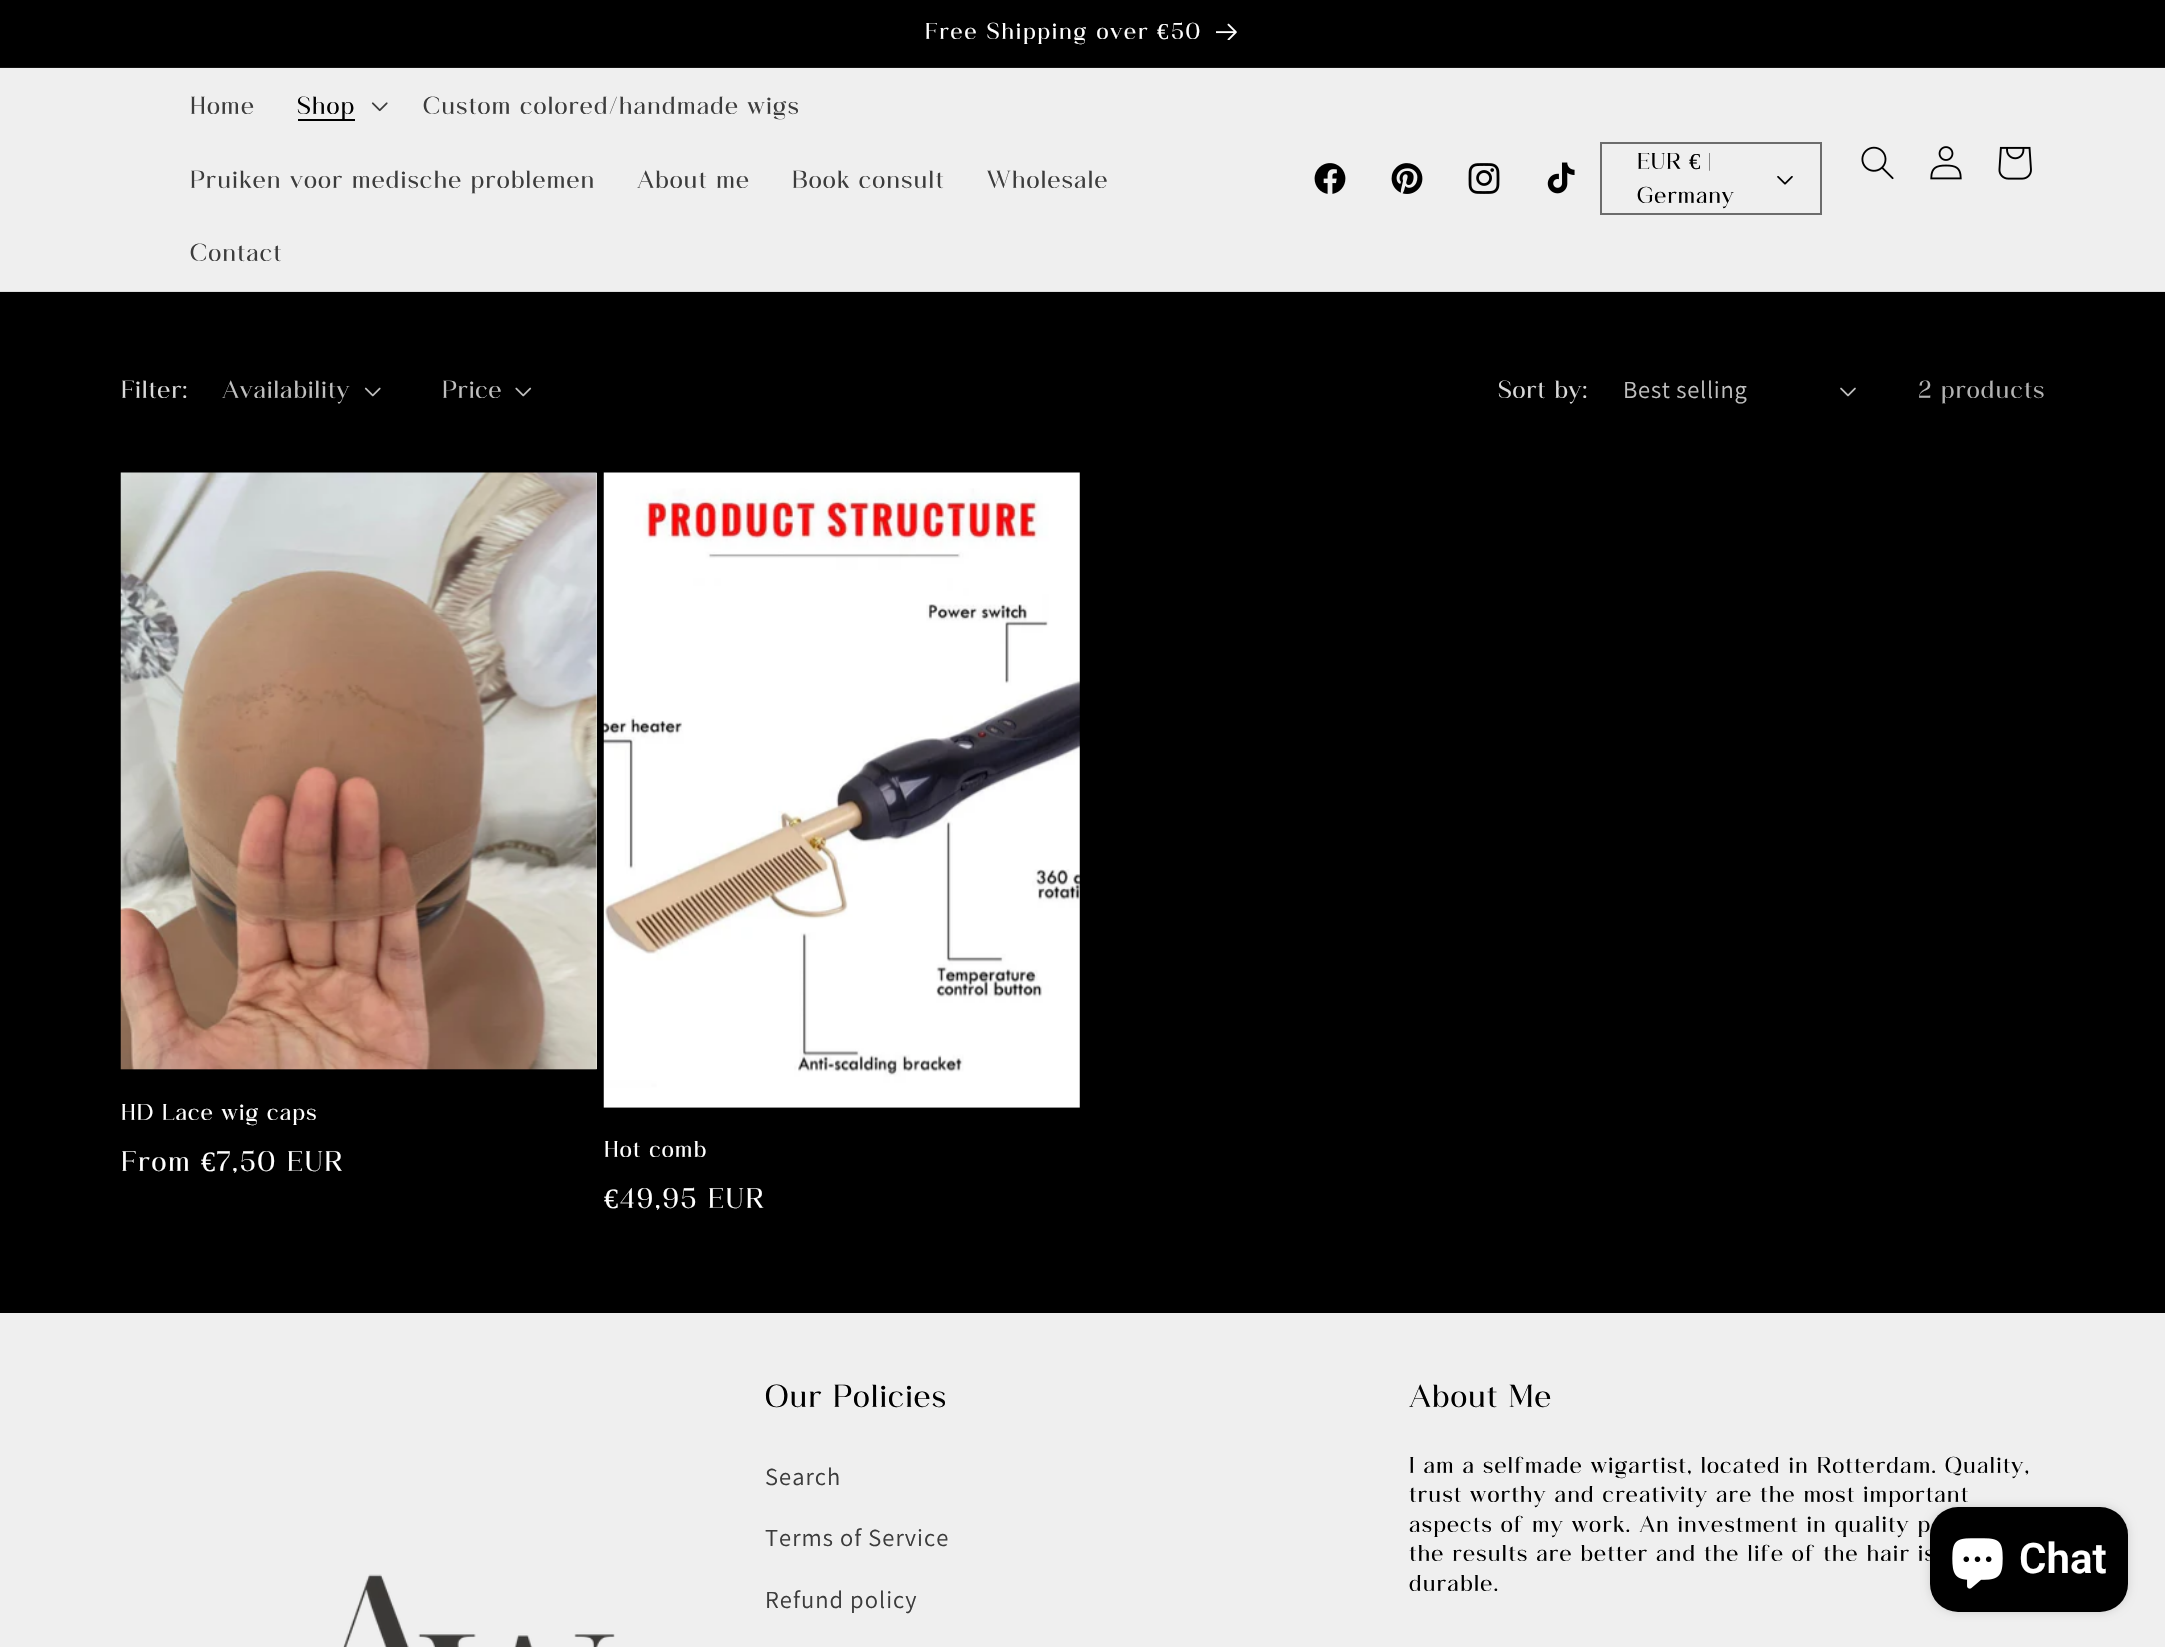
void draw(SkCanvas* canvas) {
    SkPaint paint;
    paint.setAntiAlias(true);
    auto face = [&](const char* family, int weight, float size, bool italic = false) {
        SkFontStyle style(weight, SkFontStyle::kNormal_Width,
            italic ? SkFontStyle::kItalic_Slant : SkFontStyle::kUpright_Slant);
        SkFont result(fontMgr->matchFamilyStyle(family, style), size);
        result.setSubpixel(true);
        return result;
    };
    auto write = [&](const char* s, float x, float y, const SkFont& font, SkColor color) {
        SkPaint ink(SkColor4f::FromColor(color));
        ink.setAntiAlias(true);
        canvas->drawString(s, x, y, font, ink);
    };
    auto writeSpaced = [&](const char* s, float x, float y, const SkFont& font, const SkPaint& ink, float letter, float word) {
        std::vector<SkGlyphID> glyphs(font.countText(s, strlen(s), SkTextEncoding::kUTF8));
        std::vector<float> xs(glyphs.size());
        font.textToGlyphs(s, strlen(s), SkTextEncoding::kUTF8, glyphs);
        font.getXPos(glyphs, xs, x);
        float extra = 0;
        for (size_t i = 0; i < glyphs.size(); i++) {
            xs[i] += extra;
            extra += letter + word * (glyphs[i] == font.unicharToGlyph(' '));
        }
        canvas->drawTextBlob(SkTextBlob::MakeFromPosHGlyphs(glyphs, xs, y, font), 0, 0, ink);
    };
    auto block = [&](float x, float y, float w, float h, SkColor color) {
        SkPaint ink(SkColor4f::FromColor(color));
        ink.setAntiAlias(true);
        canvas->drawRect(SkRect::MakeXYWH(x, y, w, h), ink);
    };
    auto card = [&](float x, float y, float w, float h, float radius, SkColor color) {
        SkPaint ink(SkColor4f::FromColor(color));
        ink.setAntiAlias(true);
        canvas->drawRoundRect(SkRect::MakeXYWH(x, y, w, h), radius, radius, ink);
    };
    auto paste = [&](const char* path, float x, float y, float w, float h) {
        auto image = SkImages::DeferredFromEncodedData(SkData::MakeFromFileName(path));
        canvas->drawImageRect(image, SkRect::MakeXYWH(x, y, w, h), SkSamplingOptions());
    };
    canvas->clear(SK_ColorBLACK);
    block(0, 67, 2165, 1, SkColorSetRGB(20, 20, 20));
    auto kFont1 = face("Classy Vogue", 400, 22.75f);
    paint.setColor(SK_ColorWHITE);
    writeSpaced("Free Shipping over", 925, 39, kFont1, paint, 1.75f, 0);
    auto kFont2 = face("Liberation Serif", 400, 22.75f);
    writeSpaced("€", 1157, 39, kFont2, paint, 1.75f, 0);
    writeSpaced("50", 1171, 39, kFont1, paint, 1.75f, 0);
    paste("pic1.png", 1216, 23, 21, 17);
    block(0, 69, 2165, 222, SkColorSetRGB(239, 239, 239));
    block(0, 68, 2165, 1, SkColorSetRGB(240, 240, 240));
    block(0, 291, 2165, 1, SkColorSetRGB(220, 220, 220));
    auto kFont3 = face("Classy Vogue", 400, 24.5f);
    paint.setColor(SkColorSetRGB(60, 60, 60));
    writeSpaced("Home", 190, 114, kFont3, paint, 1.05f, 0);
    block(298, 119, 57, 2, SK_ColorBLACK);
    paint.setColor(SK_ColorBLACK);
    writeSpaced("Shop", 297, 114, kFont3, paint, 1.05f, 0);
    paste("pic2.png", 371, 102, 17, 10);
    paint.setColor(SkColorSetRGB(60, 60, 60));
    writeSpaced("Custom colored/handmade wigs", 423, 114, kFont3, paint, 1.05f, 0);
    writeSpaced("Pruiken voor medische problemen", 190, 188, kFont3, paint, 1.05f, 0);
    writeSpaced("About me", 637, 188, kFont3, paint, 1.05f, 0);
    writeSpaced("Book consult", 792, 188, kFont3, paint, 1.05f, 0);
    writeSpaced("Wholesale", 987, 188, kFont3, paint, 1.05f, 0);
    writeSpaced("Contact", 190, 261, kFont3, paint, 1.05f, 0);
    paste("pic3.png", 1314, 163, 32, 31);
    paste("pic4.png", 1391, 163, 32, 31);
    paste("pic5.png", 1468, 163, 32, 31);
    paste("pic6.png", 1547, 162, 28, 32);
    paste("pic7.png", 1777, 176, 16, 9);
    paint.setStyle(SkPaint::kStroke_Style);
    paint.setStrokeWidth(2);
    paint.setColor(SkColorSetRGB(108, 108, 108));
    canvas->drawRect(SkRect::MakeXYWH(1601, 143, 220, 71), paint);
    paint.setStyle(SkPaint::kFill_Style);
    paint.setColor(SK_ColorBLACK);
    writeSpaced("EUR", 1637, 169, kFont1, paint, 0.75f, 0);
    writeSpaced("€", 1689, 169, kFont2, paint, 0.75f, 0);
    writeSpaced("|", 1708, 169, kFont1, paint, 0.75f, 0);
    writeSpaced("Germany", 1637, 203, kFont1, paint, 0.75f, 0);
    paste("pic8.png", 1861, 146, 33, 34);
    paste("pic9.png", 1930, 146, 32, 34);
    paste("pic10.png", 1998, 146, 34, 34);
    paint.setColor(SkColorSetRGB(217, 217, 217));
    writeSpaced("Filter:", 121, 398, kFont3, paint, 0.75f, 0);
    paint.setColor(SkColorSetRGB(191, 191, 191));
    writeSpaced("Availability", 222, 398, kFont3, paint, 0.75f, 0);
    paste("pic11.png", 364, 387, 17, 10);
    writeSpaced("Price", 442, 398, kFont3, paint, 0.75f, 0);
    paste("pic12.png", 515, 387, 17, 10);
    paint.setColor(SkColorSetRGB(217, 217, 217));
    writeSpaced("Sort by:", 1498, 398, kFont3, paint, 0.75f, 0);
    auto kFont4 = face("Assistant", 400, 24.5f);
    paint.setColor(SkColorSetRGB(191, 191, 191));
    writeSpaced("Best selling", 1623, 398, kFont4, paint, 0.75f, 0);
    paste("pic13.png", 1840, 387, 16, 10);
    paint.setColor(SkColorSetRGB(179, 179, 179));
    writeSpaced("2 products", 1918, 398, kFont3, paint, 1.05f, 0);
    block(595, 473, 2, 596, SkColorSetRGB(243, 243, 243));
    paste("pic14.png", 120, 472, 477, 598);
    paint.setColor(SK_ColorWHITE);
    writeSpaced("HD Lace wig caps", 121, 1120, kFont1, paint, 1.05f, 0);
    auto kFont5 = face("Classy Vogue", 400, 28);
    writeSpaced("From", 121, 1171, kFont5, paint, 1.75f, 0);
    auto kFont6 = face("Liberation Serif", 400, 28);
    writeSpaced("€", 201, 1171, kFont6, paint, 1.75f, 0);
    writeSpaced("7,50 EUR", 217, 1171, kFont5, paint, 1.75f, 0);
    paste("pic15.png", 603, 472, 477, 636);
    writeSpaced("Hot comb", 604, 1157, kFont1, paint, 1.05f, 0);
    writeSpaced("€", 604, 1208, kFont6, paint, 1.75f, 0);
    writeSpaced("49,95 EUR", 620, 1208, kFont5, paint, 1.75f, 0);
    block(0, 1313, 2165, 334, SkColorSetRGB(239, 239, 239));
    auto kFont7 = face("Classy Vogue", 400, 31.5f);
    paint.setColor(SK_ColorBLACK);
    writeSpaced("Our Policies", 765, 1407, kFont7, paint, 1.05f, 0);
    paint.setColor(SkColorSetRGB(60, 60, 60));
    writeSpaced("Search", 765, 1485, kFont4, paint, 1.05f, 0);
    writeSpaced("Terms of Service", 765, 1546, kFont4, paint, 1.05f, 0);
    writeSpaced("Refund policy", 765, 1608, kFont4, paint, 1.05f, 0);
    paint.setColor(SK_ColorBLACK);
    writeSpaced("About Me", 1409, 1407, kFont7, paint, 1.05f, 0);
    writeSpaced("I am a selfmade wigartist, located in Rotterdam. Quality,", 1409, 1473, kFont1, paint, 1.05f, 0);
    writeSpaced("trust worthy and creativity are the most important", 1409, 1502, kFont1, paint, 1.05f, 0);
    writeSpaced("aspects of my work. An investment in quality p", 1409, 1532, kFont1, paint, 1.05f, 0);
    writeSpaced("the results are better and the life of the hair is", 1409, 1561, kFont1, paint, 1.05f, 0);
    writeSpaced("durable.", 1409, 1591, kFont1, paint, 1.05f, 0);
    paste("pic16.png", 343, 1574, 272, 73);
    paint.setColor(SkColorSetARGB(38, 0, 0, 0));
    paint.setMaskFilter(SkMaskFilter::MakeBlur(kNormal_SkBlurStyle, 4.5f));
    canvas->drawRoundRect(SkRect::MakeXYWH(1930, 1507, 198, 105), 28, 28, paint);
    paint.setMaskFilter(nullptr);
    card(1930, 1507, 198, 105, 28, SK_ColorBLACK);
    paste("pic17.png", 1952, 1538, 51, 51);
    auto kFont8 = face("Roboto", 600, 42);
    write("Chat", 2019, 1573, kFont8, SK_ColorWHITE);
}
